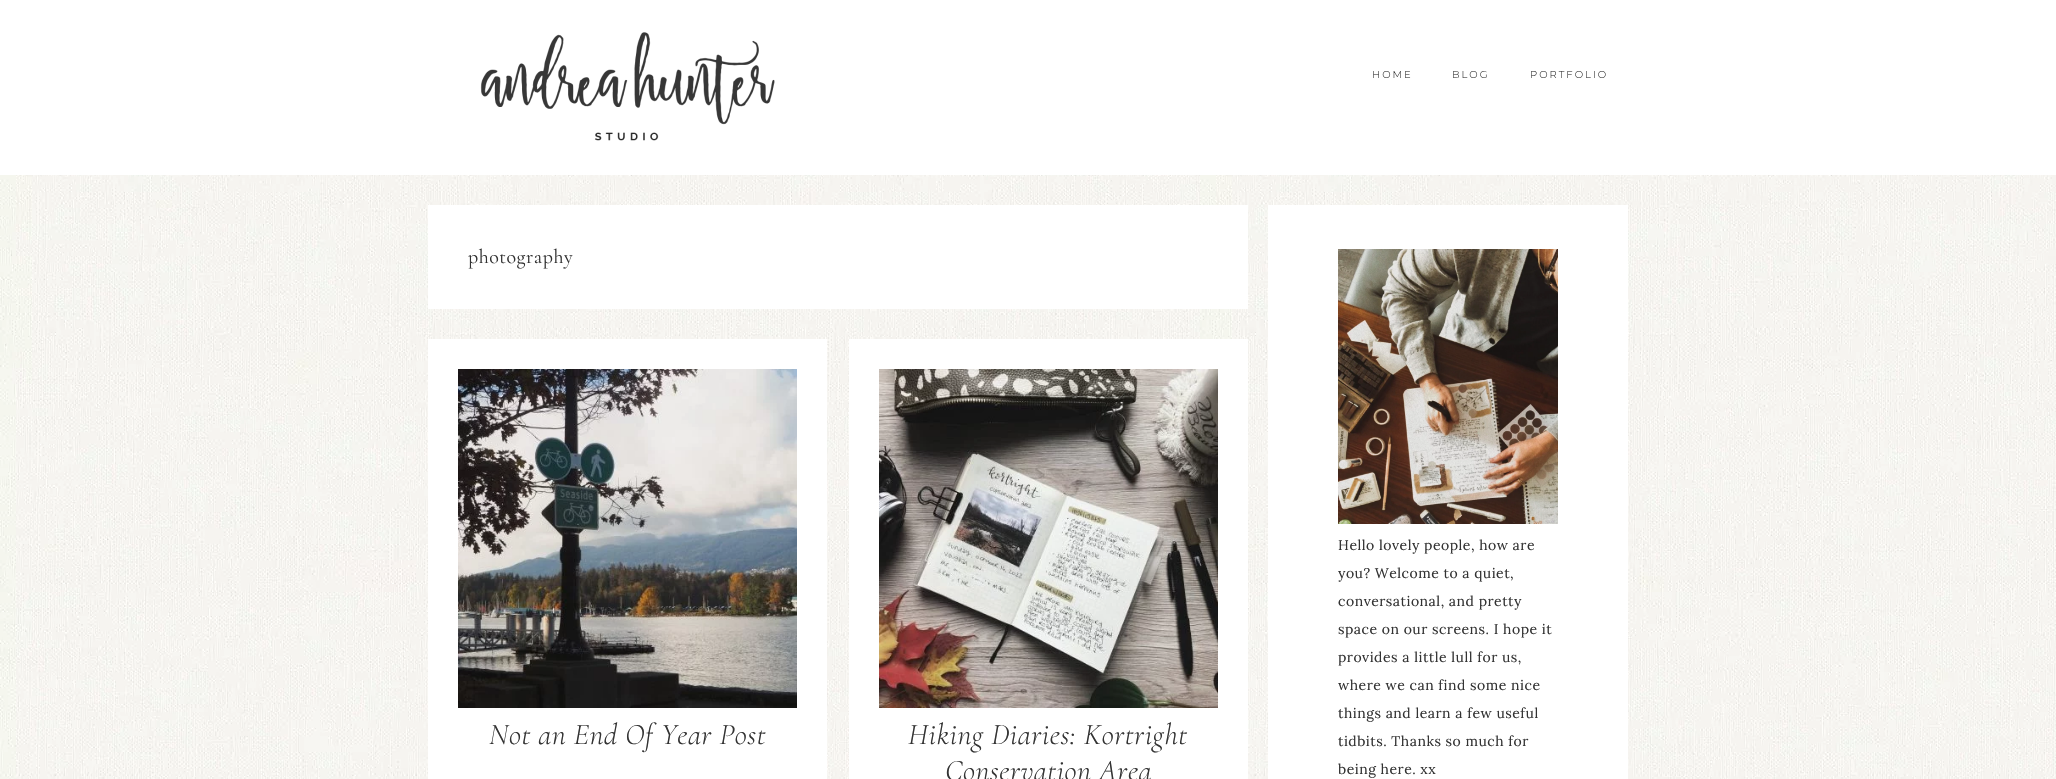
void draw(SkCanvas* canvas) {
    SkPaint paint;
    paint.setAntiAlias(true);
    auto face = [&](const char* family, int weight, float size, bool italic = false) {
        SkFontStyle style(weight, SkFontStyle::kNormal_Width,
            italic ? SkFontStyle::kItalic_Slant : SkFontStyle::kUpright_Slant);
        SkFont result(fontMgr->matchFamilyStyle(family, style), size);
        result.setSubpixel(true);
        return result;
    };
    auto writeSpaced = [&](const char* s, float x, float y, const SkFont& font, const SkPaint& ink, float letter, float word) {
        std::vector<SkGlyphID> glyphs(font.countText(s, strlen(s), SkTextEncoding::kUTF8));
        std::vector<float> xs(glyphs.size());
        font.textToGlyphs(s, strlen(s), SkTextEncoding::kUTF8, glyphs);
        font.getXPos(glyphs, xs, x);
        float extra = 0;
        for (size_t i = 0; i < glyphs.size(); i++) {
            xs[i] += extra;
            extra += letter + word * (glyphs[i] == font.unicharToGlyph(' '));
        }
        canvas->drawTextBlob(SkTextBlob::MakeFromPosHGlyphs(glyphs, xs, y, font), 0, 0, ink);
    };
    auto block = [&](float x, float y, float w, float h, SkColor color) {
        SkPaint ink(SkColor4f::FromColor(color));
        ink.setAntiAlias(true);
        canvas->drawRect(SkRect::MakeXYWH(x, y, w, h), ink);
    };
    auto paste = [&](const char* path, float x, float y, float w, float h) {
        auto image = SkImages::DeferredFromEncodedData(SkData::MakeFromFileName(path));
        canvas->drawImageRect(image, SkRect::MakeXYWH(x, y, w, h), SkSamplingOptions());
    };
    canvas->clear(SK_ColorWHITE);
    paste("pic1.png", 0, 175, 2056, 604);
    paste("pic2.png", 480, 32, 295, 109);
    auto kFont1 = face("Montserrat", 300, 10);
    paint.setColor(SkColorSetRGB(51, 51, 51));
    writeSpaced("HOME", 1372, 78, kFont1, paint, 2, 0);
    writeSpaced("BLOG", 1452, 78, kFont1, paint, 2, 0);
    writeSpaced("PORTFOLIO", 1530, 78, kFont1, paint, 2, 0);
    block(428, 205, 820, 104, SK_ColorWHITE);
    auto kFont2 = face("Cormorant Garamond", 400, 20);
    writeSpaced("photography", 468, 263, kFont2, paint, 0.5f, 0);
    block(428, 339, 399, 440, SK_ColorWHITE);
    paste("pic3.png", 458, 369, 339, 339);
    auto kFont3 = face("Cormorant Garamond", 300, 30, true);
    writeSpaced("Not an End Of Year Post", 489, 744, kFont3, paint, 0.5f, 0);
    block(849, 339, 399, 440, SK_ColorWHITE);
    paste("pic4.png", 879, 369, 339, 339);
    writeSpaced("Hiking Diaries: Kortright", 908, 744, kFont3, paint, 0.5f, 0);
    writeSpaced("Conservation Area", 945, 780, kFont3, paint, 0.5f, 0);
    block(1268, 205, 360, 574, SK_ColorWHITE);
    paste("pic5.png", 1338, 249, 220, 275);
    auto kFont4 = face("Lora", 400, 14);
    writeSpaced("Hello lovely people, how are", 1338, 550, kFont4, paint, 0.5f, 0);
    writeSpaced("you? Welcome to a quiet,", 1338, 578, kFont4, paint, 0.5f, 0);
    writeSpaced("conversational, and pretty", 1338, 606, kFont4, paint, 0.5f, 0);
    writeSpaced("space on our screens. I hope it", 1338, 634, kFont4, paint, 0.5f, 0);
    writeSpaced("provides a little lull for us,", 1338, 662, kFont4, paint, 0.5f, 0);
    writeSpaced("where we can find some nice", 1338, 690, kFont4, paint, 0.5f, 0);
    writeSpaced("things and learn a few useful", 1338, 718, kFont4, paint, 0.5f, 0);
    writeSpaced("tidbits. Thanks so much for", 1338, 746, kFont4, paint, 0.5f, 0);
    writeSpaced("being here. xx", 1338, 774, kFont4, paint, 0.5f, 0);
}
